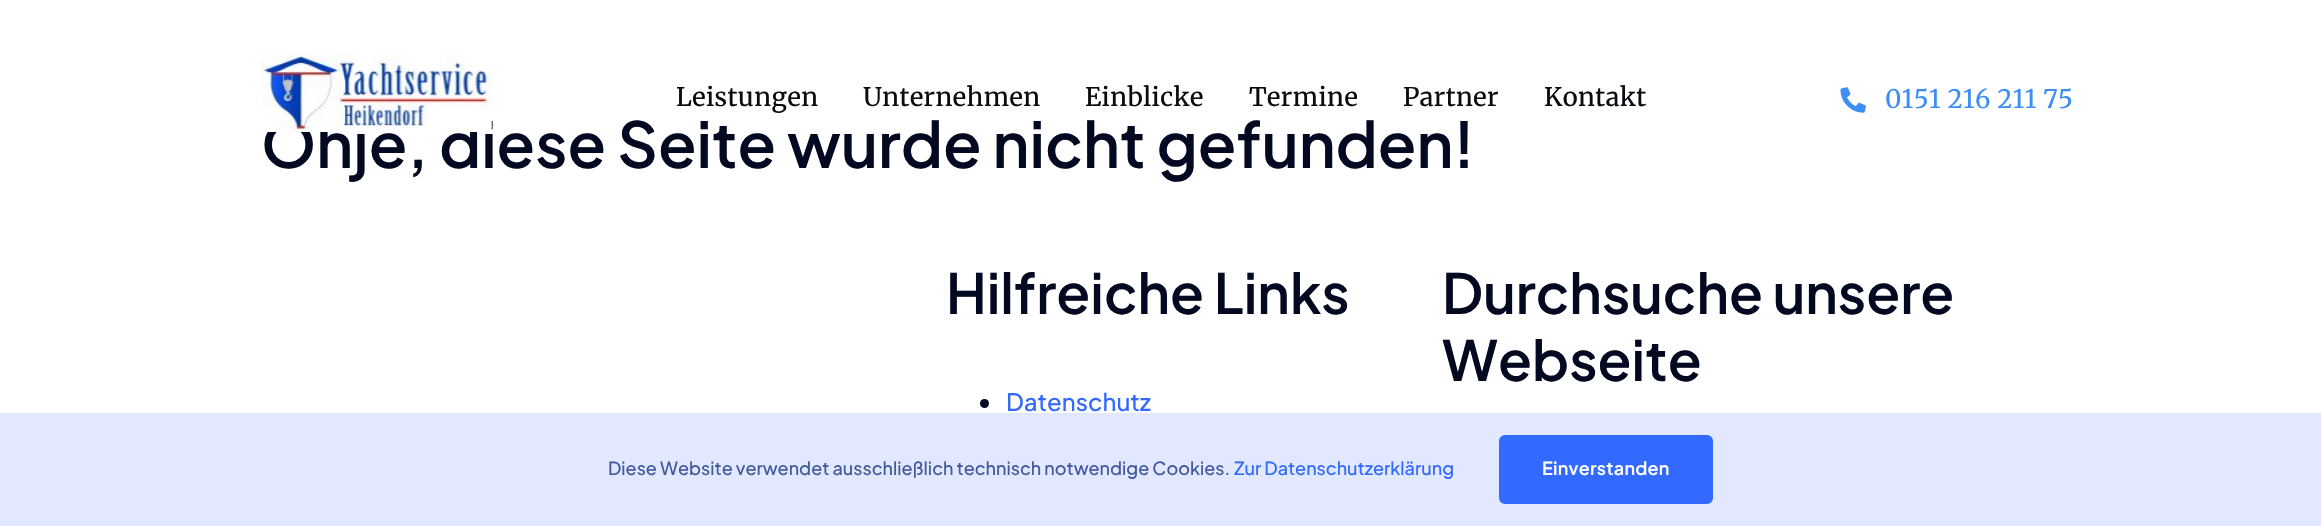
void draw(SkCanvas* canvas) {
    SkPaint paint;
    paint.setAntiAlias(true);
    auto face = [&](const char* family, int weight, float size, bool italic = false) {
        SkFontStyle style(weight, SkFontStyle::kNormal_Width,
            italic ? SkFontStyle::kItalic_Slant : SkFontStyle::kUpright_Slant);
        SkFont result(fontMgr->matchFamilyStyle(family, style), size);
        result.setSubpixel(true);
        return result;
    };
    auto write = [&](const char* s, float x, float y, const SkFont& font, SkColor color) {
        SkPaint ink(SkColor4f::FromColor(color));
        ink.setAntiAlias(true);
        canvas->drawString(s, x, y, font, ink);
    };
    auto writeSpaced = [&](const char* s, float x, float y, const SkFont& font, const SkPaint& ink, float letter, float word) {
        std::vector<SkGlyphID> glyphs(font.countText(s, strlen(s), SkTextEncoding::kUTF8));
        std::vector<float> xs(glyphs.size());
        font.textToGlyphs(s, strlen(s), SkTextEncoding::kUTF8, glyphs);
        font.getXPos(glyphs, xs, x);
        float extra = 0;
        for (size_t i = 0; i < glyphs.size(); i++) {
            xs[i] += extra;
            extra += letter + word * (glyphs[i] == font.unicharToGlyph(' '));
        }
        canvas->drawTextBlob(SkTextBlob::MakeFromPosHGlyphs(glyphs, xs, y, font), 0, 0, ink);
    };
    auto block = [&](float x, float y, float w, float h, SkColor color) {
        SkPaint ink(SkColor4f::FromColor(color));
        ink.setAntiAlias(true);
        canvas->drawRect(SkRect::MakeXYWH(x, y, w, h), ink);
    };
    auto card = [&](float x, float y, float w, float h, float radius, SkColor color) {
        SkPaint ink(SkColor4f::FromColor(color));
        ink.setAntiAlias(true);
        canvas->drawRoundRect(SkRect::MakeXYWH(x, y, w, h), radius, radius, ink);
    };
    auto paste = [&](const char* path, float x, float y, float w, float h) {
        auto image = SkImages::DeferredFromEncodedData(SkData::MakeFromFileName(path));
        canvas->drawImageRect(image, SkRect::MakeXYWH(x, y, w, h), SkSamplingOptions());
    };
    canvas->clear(SK_ColorWHITE);
    auto kFont1 = face("Plus Jakarta Sans", 600, 63);
    write("Ohje, diese Seite wurde nicht gefunden!", 261, 168, kFont1, SkColorSetRGB(4, 9, 34));
    paste("pic1.png", 261, 52, 231, 80);
    auto kFont2 = face("Merriweather", 300, 25.5f);
    paint.setColor(SkColorSetRGB(11, 12, 17));
    writeSpaced("Leistungen", 676, 106, kFont2, paint, 0.4f, 0);
    writeSpaced("Unternehmen", 863, 106, kFont2, paint, 0.4f, 0);
    writeSpaced("Einblicke", 1085, 106, kFont2, paint, 0.4f, 0);
    writeSpaced("Termine", 1249, 106, kFont2, paint, 0.4f, 0);
    writeSpaced("Partner", 1403, 106, kFont2, paint, 0.4f, 0);
    writeSpaced("Kontakt", 1544, 106, kFont2, paint, 0.4f, 0);
    paste("pic2.png", 1840, 87, 26, 26);
    paint.setColor(SkColorSetRGB(62, 142, 246));
    writeSpaced("0151 216 211 75", 1885, 108, kFont2, paint, 0.4f, 0);
    auto kFont3 = face("Plus Jakarta Sans", 600, 55.5f);
    write("Hilfreiche Links", 946, 314, kFont3, SkColorSetRGB(4, 9, 34));
    paint.setColor(SkColorSetRGB(4, 9, 34));
    canvas->drawCircle(984.5f, 403.5f, 4.5f, paint);
    auto kFont4 = face("Plus Jakarta Sans", 500, 24);
    write("Datenschutz", 1006, 411, kFont4, SkColorSetRGB(50, 105, 255));
    write("Durchsuche unsere", 1442, 314, kFont3, SkColorSetRGB(4, 9, 34));
    write("Webseite", 1442, 381, kFont3, SkColorSetRGB(4, 9, 34));
    block(0, 413, 2321, 113, SkColorSetRGB(226, 232, 255));
    auto kFont5 = face("Plus Jakarta Sans", 500, 18);
    write("Diese Website verwendet ausschließlich technisch notwendige Cookies.", 608, 475, kFont5, SkColorSetRGB(66, 90, 158));
    write("Zur Datenschutzerklärung", 1234, 475, kFont5, SkColorSetRGB(50, 105, 255));
    card(1499, 435, 214, 69, 6, SkColorSetRGB(50, 105, 255));
    auto kFont6 = face("Plus Jakarta Sans", 600, 18);
    paint.setColor(SK_ColorWHITE);
    writeSpaced("Einverstanden", 1542, 475, kFont6, paint, 0.25f, 0);
}
